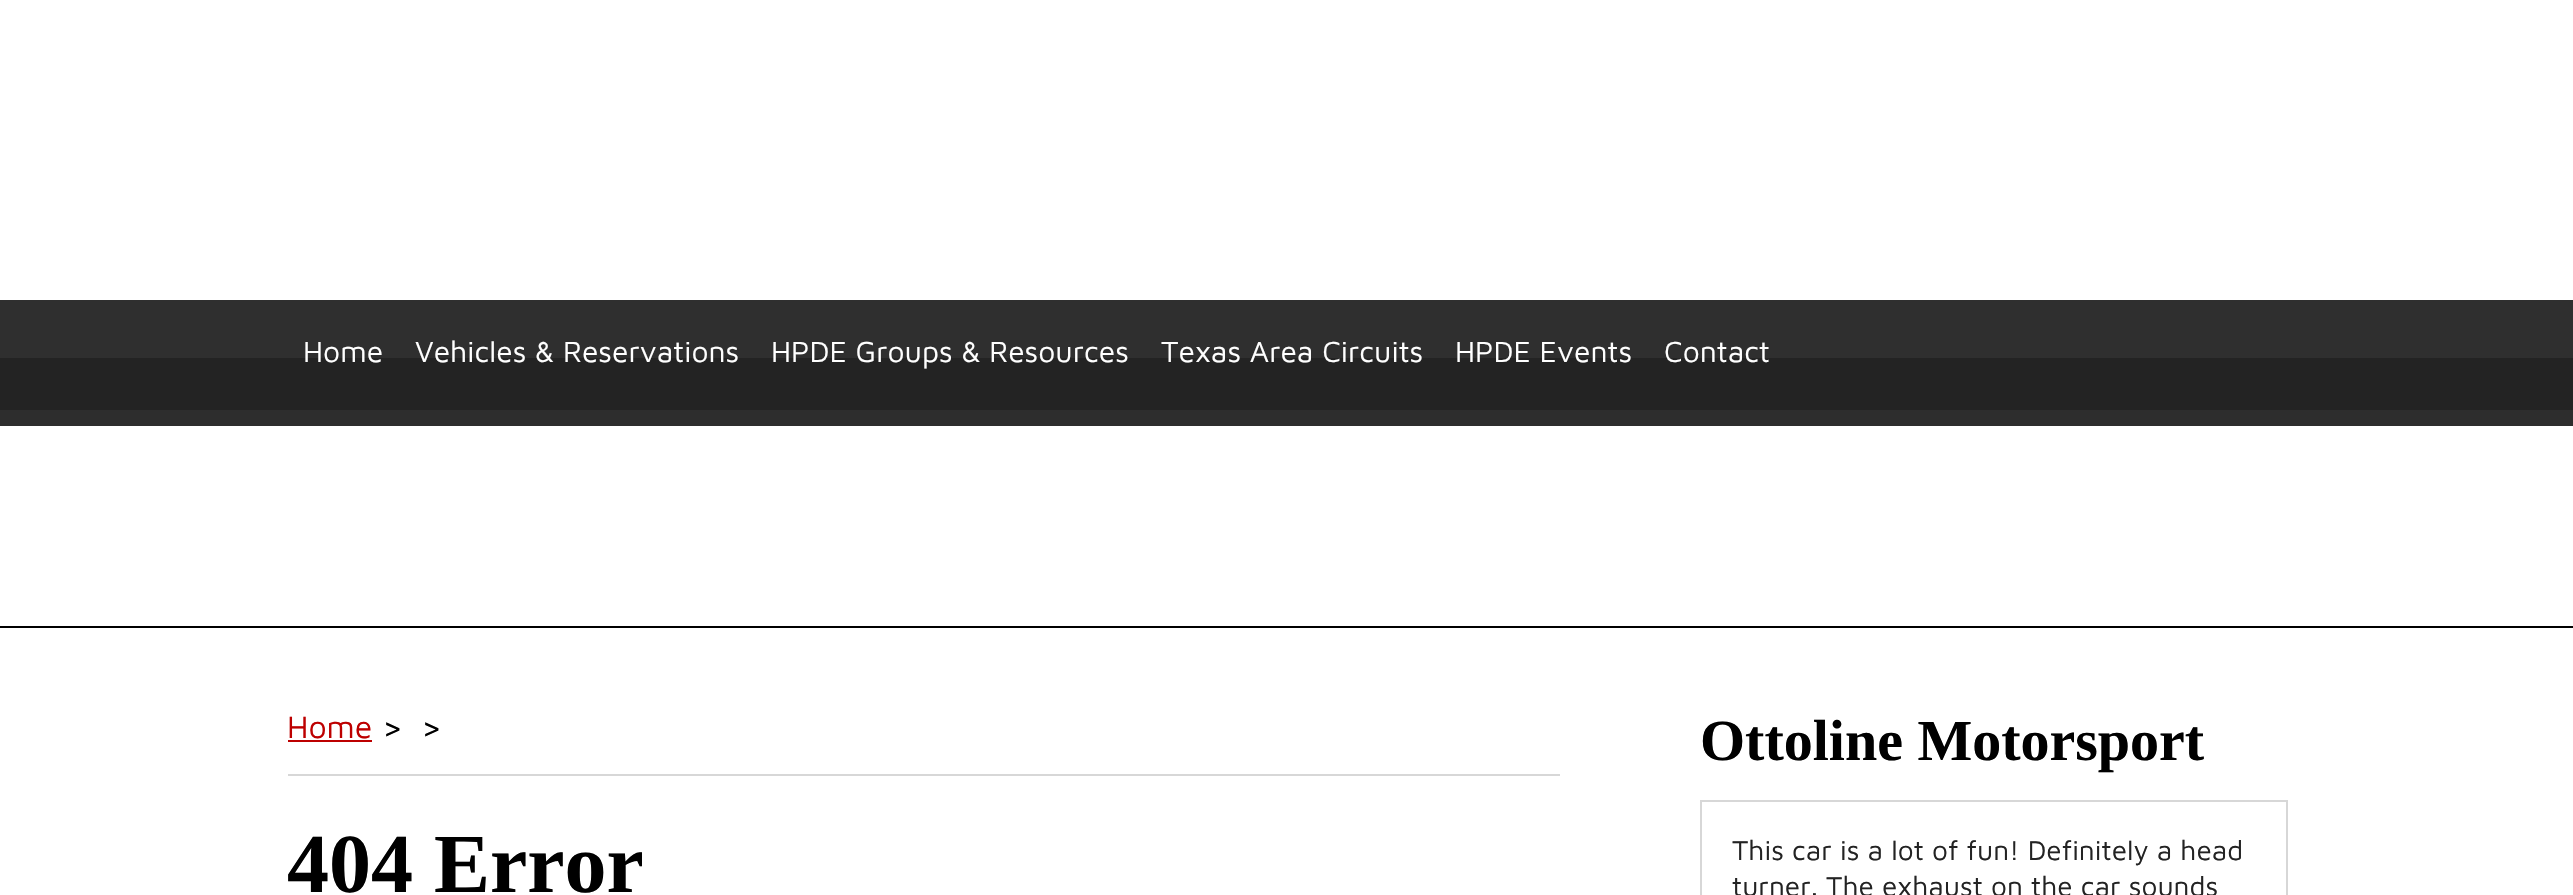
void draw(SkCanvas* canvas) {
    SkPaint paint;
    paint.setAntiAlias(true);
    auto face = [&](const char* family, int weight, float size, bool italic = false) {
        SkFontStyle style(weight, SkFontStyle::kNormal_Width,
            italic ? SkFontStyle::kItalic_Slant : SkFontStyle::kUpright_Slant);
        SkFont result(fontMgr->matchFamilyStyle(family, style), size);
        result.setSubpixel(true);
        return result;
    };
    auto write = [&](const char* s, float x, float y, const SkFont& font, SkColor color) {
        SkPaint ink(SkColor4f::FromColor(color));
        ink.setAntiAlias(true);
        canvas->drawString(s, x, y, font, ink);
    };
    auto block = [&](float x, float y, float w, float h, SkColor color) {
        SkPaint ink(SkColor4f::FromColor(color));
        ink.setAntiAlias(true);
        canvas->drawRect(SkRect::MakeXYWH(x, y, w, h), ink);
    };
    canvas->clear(SK_ColorWHITE);
    block(0, 300, 2573, 58, SkColorSetRGB(47, 47, 47));
    block(0, 358, 2573, 52, SkColorSetRGB(35, 35, 35));
    block(0, 410, 2573, 16, SkColorSetRGB(45, 45, 45));
    auto kFont1 = face("Maven Pro", 400, 30);
    write("Home", 303, 362, kFont1, SK_ColorWHITE);
    write("Vehicles & Reservations", 415, 362, kFont1, SK_ColorWHITE);
    write("HPDE Groups & Resources", 771, 362, kFont1, SK_ColorWHITE);
    write("Texas Area Circuits", 1161, 362, kFont1, SK_ColorWHITE);
    write("HPDE Events", 1455, 362, kFont1, SK_ColorWHITE);
    write("Contact", 1664, 362, kFont1, SK_ColorWHITE);
    block(0, 626, 2573, 2, SK_ColorBLACK);
    block(288, 774, 1272, 2, SkColorSetRGB(215, 215, 215));
    auto kFont2 = face("Maven Pro", 400, 32);
    write("Home", 287, 738, kFont2, SkColorSetRGB(189, 0, 0));
    block(288, 740, 84, 2, SkColorSetRGB(189, 0, 0));
    write(">", 382, 738, kFont2, SK_ColorBLACK);
    write(">", 421, 738, kFont2, SK_ColorBLACK);
    auto kFont3 = face("Liberation Serif", 700, 84);
    write("404 Error", 287, 892, kFont3, SK_ColorBLACK);
    auto kFont4 = face("Liberation Serif", 700, 58);
    write("Ottoline Motorsport", 1700, 760, kFont4, SK_ColorBLACK);
    paint.setStyle(SkPaint::kStroke_Style);
    paint.setStrokeWidth(2);
    paint.setColor(SkColorSetRGB(215, 215, 215));
    canvas->drawRect(SkRect::MakeXYWH(1701, 801, 586, 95), paint);
    auto kFont5 = face("Maven Pro", 400, 28);
    write("This car is a lot of fun! Definitely a head", 1732, 860, kFont5, SkColorSetRGB(35, 35, 35));
    write("turner. The exhaust on the car sounds", 1732, 896, kFont5, SkColorSetRGB(35, 35, 35));
}
